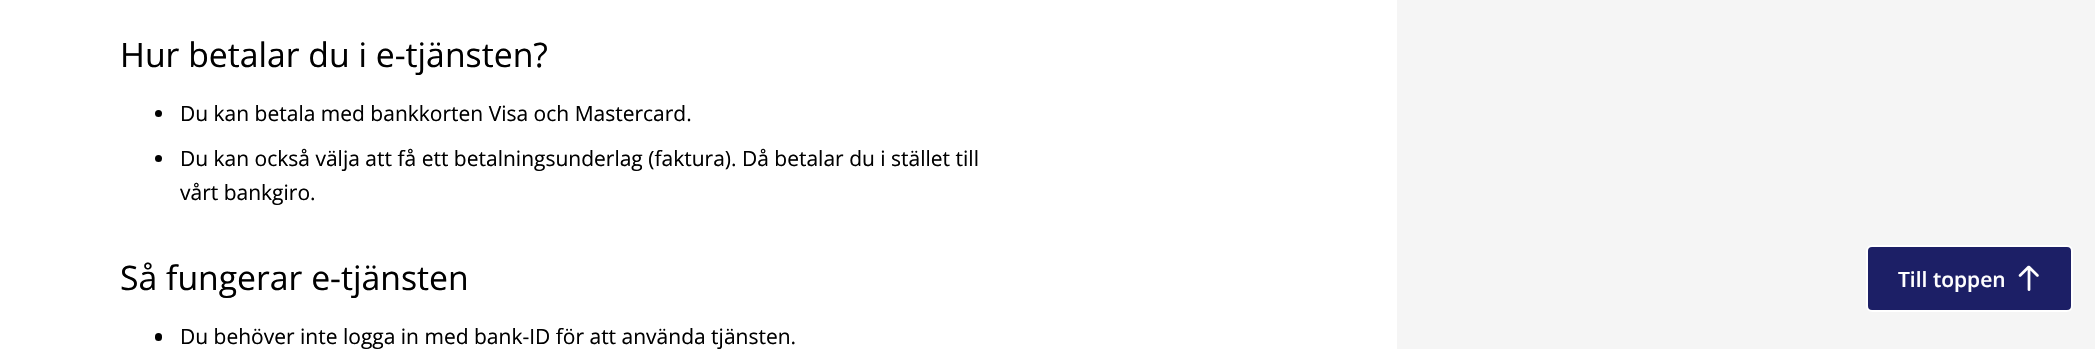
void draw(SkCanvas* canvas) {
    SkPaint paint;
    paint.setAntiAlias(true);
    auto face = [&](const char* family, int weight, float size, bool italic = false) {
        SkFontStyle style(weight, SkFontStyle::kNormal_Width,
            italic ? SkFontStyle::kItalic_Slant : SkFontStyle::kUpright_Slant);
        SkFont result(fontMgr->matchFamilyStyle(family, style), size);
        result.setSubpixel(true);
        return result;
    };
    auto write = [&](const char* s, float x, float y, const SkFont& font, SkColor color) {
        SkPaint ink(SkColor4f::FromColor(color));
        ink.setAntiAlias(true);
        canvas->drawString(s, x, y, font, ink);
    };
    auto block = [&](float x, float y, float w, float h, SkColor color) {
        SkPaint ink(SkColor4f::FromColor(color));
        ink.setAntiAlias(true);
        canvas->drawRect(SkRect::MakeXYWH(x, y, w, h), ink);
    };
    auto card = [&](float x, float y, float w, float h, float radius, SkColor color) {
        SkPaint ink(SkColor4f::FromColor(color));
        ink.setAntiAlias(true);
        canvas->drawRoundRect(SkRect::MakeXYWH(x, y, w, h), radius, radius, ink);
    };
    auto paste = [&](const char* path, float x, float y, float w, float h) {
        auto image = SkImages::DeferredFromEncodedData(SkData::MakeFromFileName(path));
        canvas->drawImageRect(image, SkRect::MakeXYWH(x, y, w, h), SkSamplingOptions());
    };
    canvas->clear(SK_ColorWHITE);
    auto kFont1 = face("Open Sans", 400, 33.75f);
    write("Hur betalar du i e-tjänsten?", 120, 67, kFont1, SK_ColorBLACK);
    paint.setColor(SK_ColorBLACK);
    canvas->drawCircle(158.5f, 113.5f, 3.5f, paint);
    auto kFont2 = face("Open Sans", 400, 21);
    write("Du kan betala med bankkorten Visa och Mastercard.", 180, 121, kFont2, SK_ColorBLACK);
    canvas->drawCircle(158.5f, 158.5f, 3.5f, paint);
    write("Du kan också välja att få ett betalningsunderlag (faktura). Då betalar du i stället till", 180, 166, kFont2, SK_ColorBLACK);
    write("vårt bankgiro.", 180, 200, kFont2, SK_ColorBLACK);
    write("Så fungerar e-tjänsten", 120, 290, kFont1, SK_ColorBLACK);
    card(155, 333, 7, 8, 3.5f, SK_ColorBLACK);
    write("Du behöver inte logga in med bank-ID för att använda tjänsten.", 180, 344, kFont2, SK_ColorBLACK);
    block(1397, 0, 698, 349, SkColorSetRGB(245, 245, 245));
    paint.setColor(SkColorSetRGB(28, 31, 102));
    canvas->drawRoundRect(SkRect::MakeXYWH(1867, 246, 205, 65), 5, 5, paint);
    paint.setStyle(SkPaint::kStroke_Style);
    paint.setStrokeWidth(2);
    paint.setColor(SK_ColorWHITE);
    canvas->drawRoundRect(SkRect::MakeXYWH(1867, 246, 205, 65), 5, 5, paint);
    auto kFont3 = face("Open Sans", 600, 21);
    write("Till toppen", 1898, 287, kFont3, SK_ColorWHITE);
    paste("pic1.png", 2018, 265, 21, 26);
}
